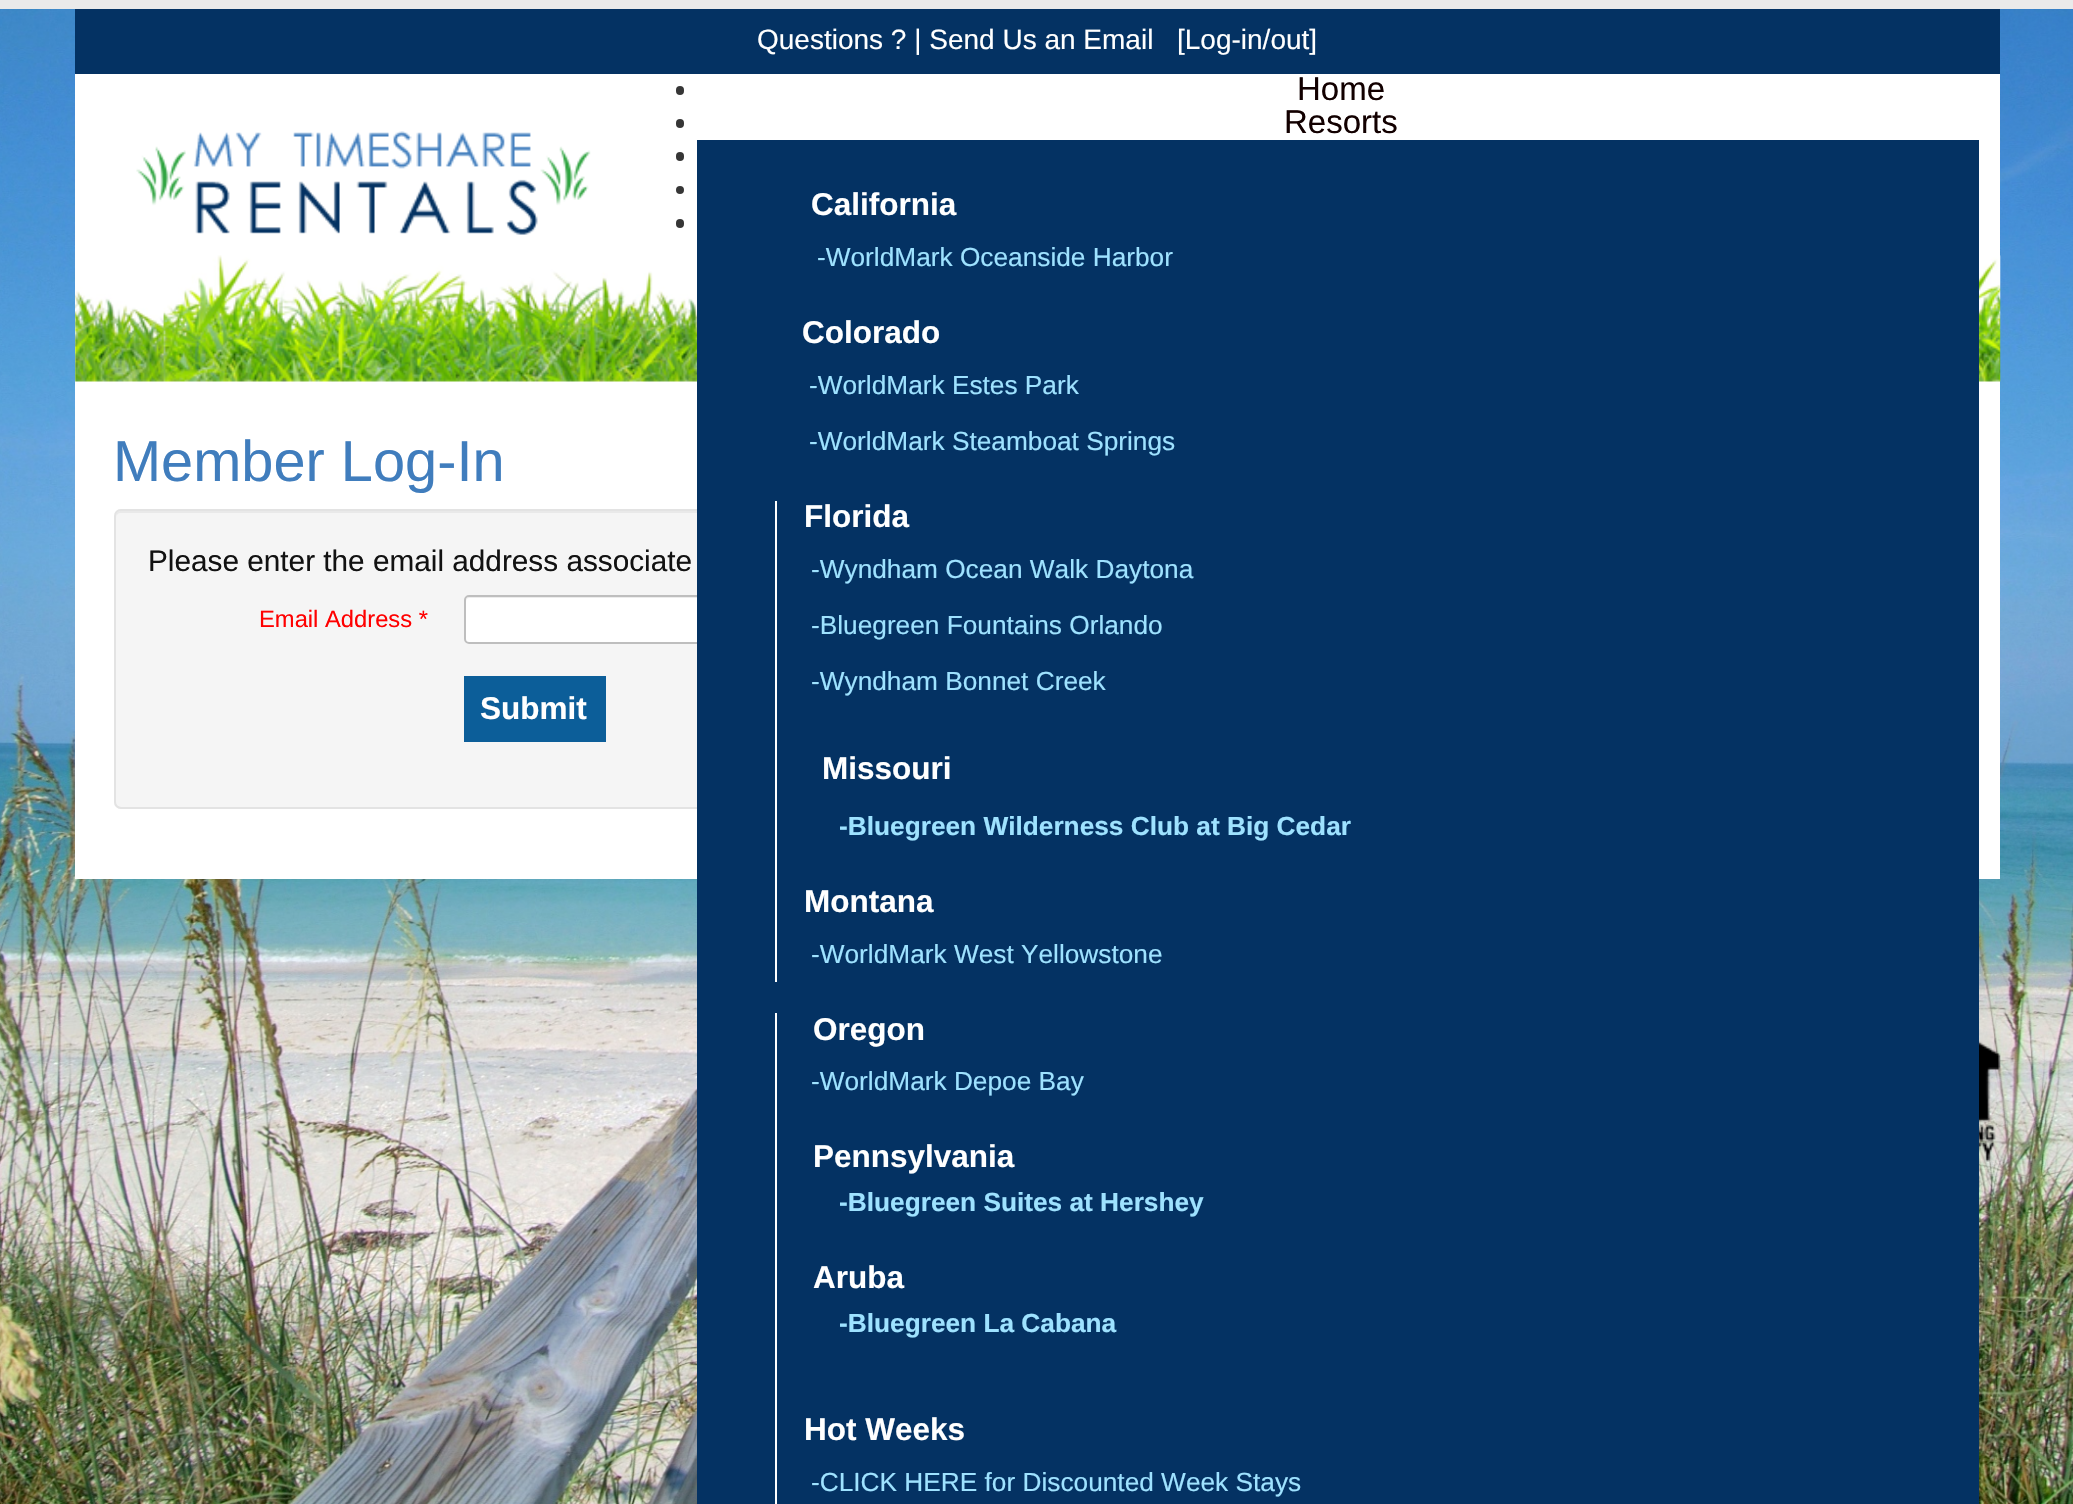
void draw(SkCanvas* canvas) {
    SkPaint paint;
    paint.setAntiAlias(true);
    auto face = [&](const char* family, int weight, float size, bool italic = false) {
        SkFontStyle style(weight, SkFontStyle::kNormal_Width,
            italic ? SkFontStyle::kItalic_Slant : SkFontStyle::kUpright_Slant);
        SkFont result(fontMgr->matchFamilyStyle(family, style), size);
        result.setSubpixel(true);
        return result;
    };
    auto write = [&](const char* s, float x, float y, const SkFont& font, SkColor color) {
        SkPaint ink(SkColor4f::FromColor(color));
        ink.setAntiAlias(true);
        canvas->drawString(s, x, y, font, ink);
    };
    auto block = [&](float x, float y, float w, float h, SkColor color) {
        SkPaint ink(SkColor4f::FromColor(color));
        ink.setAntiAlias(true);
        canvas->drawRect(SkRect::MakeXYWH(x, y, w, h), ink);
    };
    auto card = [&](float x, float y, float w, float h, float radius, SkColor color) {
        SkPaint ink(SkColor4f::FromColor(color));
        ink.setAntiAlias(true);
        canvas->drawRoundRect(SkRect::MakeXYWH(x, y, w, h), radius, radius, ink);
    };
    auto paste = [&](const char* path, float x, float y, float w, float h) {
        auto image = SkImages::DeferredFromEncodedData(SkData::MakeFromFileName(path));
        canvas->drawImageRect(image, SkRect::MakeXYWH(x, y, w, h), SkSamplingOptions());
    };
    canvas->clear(SK_ColorWHITE);
    paste("pic1.png", 0, 9, 2073, 1495);
    block(0, 0, 2073, 9, SkColorSetRGB(234, 234, 234));
    block(75, 74, 1925, 805, SK_ColorWHITE);
    block(75, 9, 1925, 65, SkColorSetRGB(4, 50, 99));
    auto kFont1 = face("Liberation Sans", 400, 28);
    write("Questions ? | Send Us an Email", 757, 49, kFont1, SK_ColorWHITE);
    write("[Log-in/out]", 1177, 49, kFont1, SK_ColorWHITE);
    paste("pic2.png", 75, 255, 1926, 127);
    auto kFont2 = face("Liberation Sans", 400, 57.75f);
    write("Member Log-In", 113, 481, kFont2, SkColorSetRGB(64, 125, 189));
    card(114, 509, 1848, 300, 7, SkColorSetRGB(245, 245, 245));
    paint.setColor(SkColorSetRGB(233, 233, 233));
    canvas->drawPath(SkPathBuilder().moveTo(121, 513).lineTo(1955, 513).cubicTo(1958, 513, 1960, 515, 1960, 518).cubicTo(1960, 515, 1959, 511, 1955, 511).lineTo(121, 511).cubicTo(117, 511, 116, 515, 116, 518).cubicTo(116, 515, 118, 513, 121, 513).close().detach(), paint);
    paint.setStyle(SkPaint::kStroke_Style);
    paint.setStrokeWidth(2);
    paint.setColor(SkColorSetRGB(227, 227, 227));
    canvas->drawRoundRect(SkRect::MakeXYWH(115, 510, 1846, 298), 6, 6, paint);
    auto kFont3 = face("Liberation Sans", 400, 29.75f);
    write("Please enter the email address associate", 148, 571, kFont3, SkColorSetRGB(18, 18, 18));
    auto kFont4 = face("Liberation Sans", 400, 23.75f);
    write("Email Address *", 259, 627, kFont4, SkColorSetRGB(255, 0, 0));
    card(464, 595, 378, 49, 5, SK_ColorWHITE);
    paint.setStyle(SkPaint::kFill_Style);
    paint.setColor(SkColorSetRGB(236, 236, 236));
    canvas->drawPath(SkPathBuilder().moveTo(469, 598).lineTo(836, 598).cubicTo(838, 598, 840, 600, 840, 602).cubicTo(840, 599, 839, 597, 836, 597).lineTo(470, 597).cubicTo(467, 597, 466, 599, 466, 602).cubicTo(466, 600, 467, 598, 469, 598).close().detach(), paint);
    paint.setStyle(SkPaint::kStroke_Style);
    paint.setColor(SkColorSetRGB(190, 190, 190));
    canvas->drawRoundRect(SkRect::MakeXYWH(465, 596, 376, 47), 4, 4, paint);
    block(464, 676, 142, 66, SkColorSetRGB(12, 94, 153));
    auto kFont5 = face("Liberation Sans", 700, 31.5f);
    write("Submit", 480, 719, kFont5, SK_ColorWHITE);
    paste("pic3.png", 136, 131, 455, 104);
    card(676, 86, 8, 9, 4, SkColorSetRGB(54, 54, 54));
    auto kFont6 = face("Liberation Sans", 400, 33);
    write("Home", 1297, 100, kFont6, SkColorSetRGB(18, 0, 0));
    card(676, 152, 8, 9, 4, SkColorSetRGB(54, 54, 54));
    card(676, 119, 8, 9, 4, SkColorSetRGB(54, 54, 54));
    write("Resorts", 1284, 133, kFont6, SkColorSetRGB(18, 0, 0));
    block(697, 140, 1282, 1364, SkColorSetRGB(4, 50, 99));
    write("California", 811, 215, kFont5, SK_ColorWHITE);
    auto kFont7 = face("Liberation Sans", 400, 26.25f);
    write("-WorldMark Oceanside Harbor", 817, 266, kFont7, SkColorSetRGB(158, 226, 255));
    write("Colorado", 802, 343, kFont5, SK_ColorWHITE);
    write("-WorldMark Estes Park", 809, 394, kFont7, SkColorSetRGB(158, 226, 255));
    write("-WorldMark Steamboat Springs", 809, 450, kFont7, SkColorSetRGB(158, 226, 255));
    block(775, 501, 2, 481, SK_ColorWHITE);
    write("Florida", 804, 527, kFont5, SK_ColorWHITE);
    write("-Wyndham Ocean Walk Daytona", 811, 578, kFont7, SkColorSetRGB(158, 226, 255));
    write("-Bluegreen Fountains Orlando", 811, 634, kFont7, SkColorSetRGB(158, 226, 255));
    write("-Wyndham Bonnet Creek", 811, 690, kFont7, SkColorSetRGB(158, 226, 255));
    write("Missouri", 822, 779, kFont5, SK_ColorWHITE);
    auto kFont8 = face("Liberation Sans", 700, 26.25f);
    write("-Bluegreen Wilderness Club at Big Cedar", 839, 835, kFont8, SkColorSetRGB(158, 226, 255));
    write("Montana", 804, 912, kFont5, SK_ColorWHITE);
    write("-WorldMark West Yellowstone", 811, 963, kFont7, SkColorSetRGB(158, 226, 255));
    block(775, 1013, 2, 491, SK_ColorWHITE);
    write("Oregon", 813, 1040, kFont5, SK_ColorWHITE);
    write("-WorldMark Depoe Bay", 811, 1090, kFont7, SkColorSetRGB(158, 226, 255));
    write("Pennsylvania", 813, 1167, kFont5, SK_ColorWHITE);
    write("-Bluegreen Suites at Hershey", 839, 1211, kFont8, SkColorSetRGB(158, 226, 255));
    write("Aruba", 813, 1288, kFont5, SK_ColorWHITE);
    write("-Bluegreen La Cabana", 839, 1332, kFont8, SkColorSetRGB(158, 226, 255));
    write("Hot Weeks", 804, 1440, kFont5, SK_ColorWHITE);
    write("-CLICK HERE for Discounted Week Stays", 811, 1491, kFont7, SkColorSetRGB(158, 226, 255));
    paint.setStyle(SkPaint::kFill_Style);
    paint.setColor(SkColorSetRGB(54, 54, 54));
    canvas->drawCircle(680, 190, 4, paint);
    card(676, 219, 8, 9, 4, SkColorSetRGB(54, 54, 54));
    paste("pic4.png", 1979, 1041, 22, 121);
}
